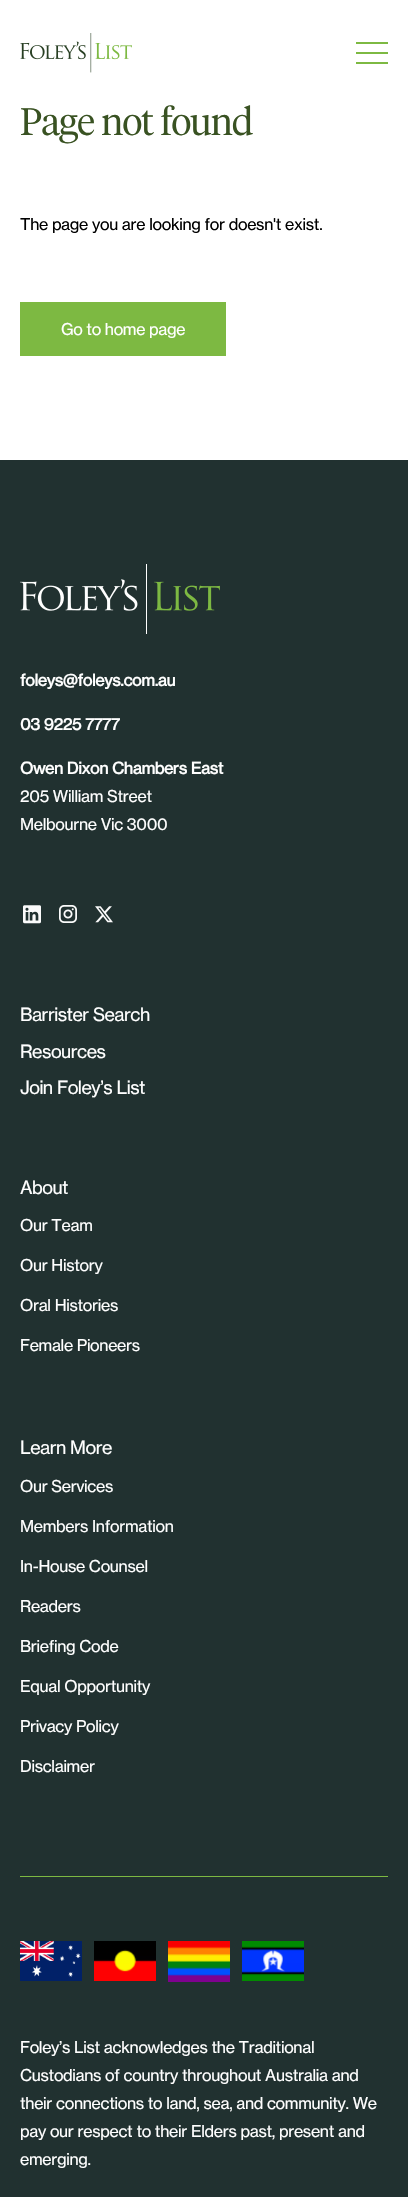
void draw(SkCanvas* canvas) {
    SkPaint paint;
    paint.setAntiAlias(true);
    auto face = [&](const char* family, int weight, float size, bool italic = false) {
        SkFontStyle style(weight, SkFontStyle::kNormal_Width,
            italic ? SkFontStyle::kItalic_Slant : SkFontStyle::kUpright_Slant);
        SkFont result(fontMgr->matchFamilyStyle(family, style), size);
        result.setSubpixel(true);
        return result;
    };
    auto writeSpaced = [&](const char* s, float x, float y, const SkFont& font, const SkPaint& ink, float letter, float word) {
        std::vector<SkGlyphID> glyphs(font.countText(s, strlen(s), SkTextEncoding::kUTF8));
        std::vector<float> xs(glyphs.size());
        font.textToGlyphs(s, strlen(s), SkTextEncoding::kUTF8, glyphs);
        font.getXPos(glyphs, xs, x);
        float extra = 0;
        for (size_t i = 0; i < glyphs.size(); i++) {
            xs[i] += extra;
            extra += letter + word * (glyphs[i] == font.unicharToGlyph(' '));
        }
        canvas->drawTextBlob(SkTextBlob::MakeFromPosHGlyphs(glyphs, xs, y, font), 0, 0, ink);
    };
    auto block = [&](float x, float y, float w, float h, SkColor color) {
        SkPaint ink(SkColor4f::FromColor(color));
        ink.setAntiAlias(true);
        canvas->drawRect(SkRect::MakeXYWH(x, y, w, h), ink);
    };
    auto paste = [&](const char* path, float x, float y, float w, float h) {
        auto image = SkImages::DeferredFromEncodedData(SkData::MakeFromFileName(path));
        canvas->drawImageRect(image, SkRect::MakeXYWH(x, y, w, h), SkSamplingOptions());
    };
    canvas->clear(SK_ColorWHITE);
    paste("pic1.png", 20, 33, 112, 40);
    block(356, 42, 32, 2, SkColorSetRGB(125, 185, 66));
    block(356, 52, 32, 2, SkColorSetRGB(125, 185, 66));
    block(356, 62, 32, 2, SkColorSetRGB(125, 185, 66));
    auto kFont1 = face("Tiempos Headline", 300, 38);
    paint.setColor(SkColorSetRGB(57, 82, 34));
    writeSpaced("Page not found", 20, 135, kFont1, paint, -0.75f, 0);
    auto kFont2 = face("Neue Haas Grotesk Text", 400, 16);
    paint.setColor(SK_ColorBLACK);
    writeSpaced("The page you are looking for doesn't exist.", 20, 230, kFont2, paint, -0.3f, 0);
    block(20, 302, 206, 54, SkColorSetRGB(125, 185, 66));
    paint.setColor(SK_ColorWHITE);
    writeSpaced("Go to home page", 61, 335, kFont2, paint, -0.3f, 0);
    block(0, 460, 408, 1737, SkColorSetRGB(33, 49, 48));
    paste("pic2.png", 20, 564, 200, 70);
    auto kFont3 = face("Neue Haas Grotesk Text", 700, 16);
    writeSpaced("foleys@foleys.com.au", 20, 686, kFont3, paint, -0.3f, 0);
    writeSpaced("03 9225 7777", 20, 730, kFont3, paint, -0.3f, 0);
    writeSpaced("Owen Dixon Chambers East", 20, 774, kFont3, paint, -0.3f, 0);
    writeSpaced("205 William Street", 20, 802, kFont2, paint, -0.3f, 0);
    writeSpaced("Melbourne Vic 3000", 20, 830, kFont2, paint, -0.3f, 0);
    paste("pic3.png", 23, 905, 18, 19);
    paste("pic4.png", 59, 905, 18, 18);
    paste("pic5.png", 95, 906, 18, 17);
    auto kFont4 = face("Neue Haas Grotesk Text", 400, 18);
    writeSpaced("Barrister Search", 20, 1021, kFont4, paint, -0.5f, 0);
    writeSpaced("Resources", 20, 1058, kFont4, paint, -0.5f, 0);
    writeSpaced("Join Foley’s List", 20, 1094, kFont4, paint, -0.5f, 0);
    writeSpaced("About", 20, 1194, kFont4, paint, -0.5f, 0);
    writeSpaced("Our Team", 20, 1231, kFont2, paint, -0.3f, 0);
    writeSpaced("Our History", 20, 1271, kFont2, paint, -0.3f, 0);
    writeSpaced("Oral Histories", 20, 1311, kFont2, paint, -0.3f, 0);
    writeSpaced("Female Pioneers", 20, 1351, kFont2, paint, -0.3f, 0);
    writeSpaced("Learn More", 20, 1454, kFont4, paint, -0.5f, 0);
    writeSpaced("Our Services", 20, 1492, kFont2, paint, -0.3f, 0);
    writeSpaced("Members Information", 20, 1532, kFont2, paint, -0.3f, 0);
    writeSpaced("In-House Counsel", 20, 1572, kFont2, paint, -0.3f, 0);
    writeSpaced("Readers", 20, 1612, kFont2, paint, -0.3f, 0);
    writeSpaced("Briefing Code", 20, 1652, kFont2, paint, -0.3f, 0);
    writeSpaced("Equal Opportunity", 20, 1692, kFont2, paint, -0.3f, 0);
    writeSpaced("Privacy Policy", 20, 1732, kFont2, paint, -0.3f, 0);
    writeSpaced("Disclaimer", 20, 1772, kFont2, paint, -0.3f, 0);
    block(20, 1876, 368, 1, SkColorSetRGB(125, 185, 66));
    paste("pic6.png", 20, 1941, 62, 40);
    paste("pic7.png", 94, 1941, 62, 40);
    paste("pic8.png", 168, 1941, 62, 41);
    paste("pic9.png", 242, 1941, 62, 40);
    writeSpaced("Foley’s List acknowledges the Traditional", 20, 2053, kFont2, paint, -0.3f, 0);
    writeSpaced("Custodians of country throughout Australia and", 20, 2081, kFont2, paint, -0.3f, 0);
    writeSpaced("their connections to land, sea, and community. We", 20, 2109, kFont2, paint, -0.3f, 0);
    writeSpaced("pay our respect to their Elders past, present and", 20, 2137, kFont2, paint, -0.3f, 0);
    writeSpaced("emerging.", 20, 2165, kFont2, paint, -0.3f, 0);
}
